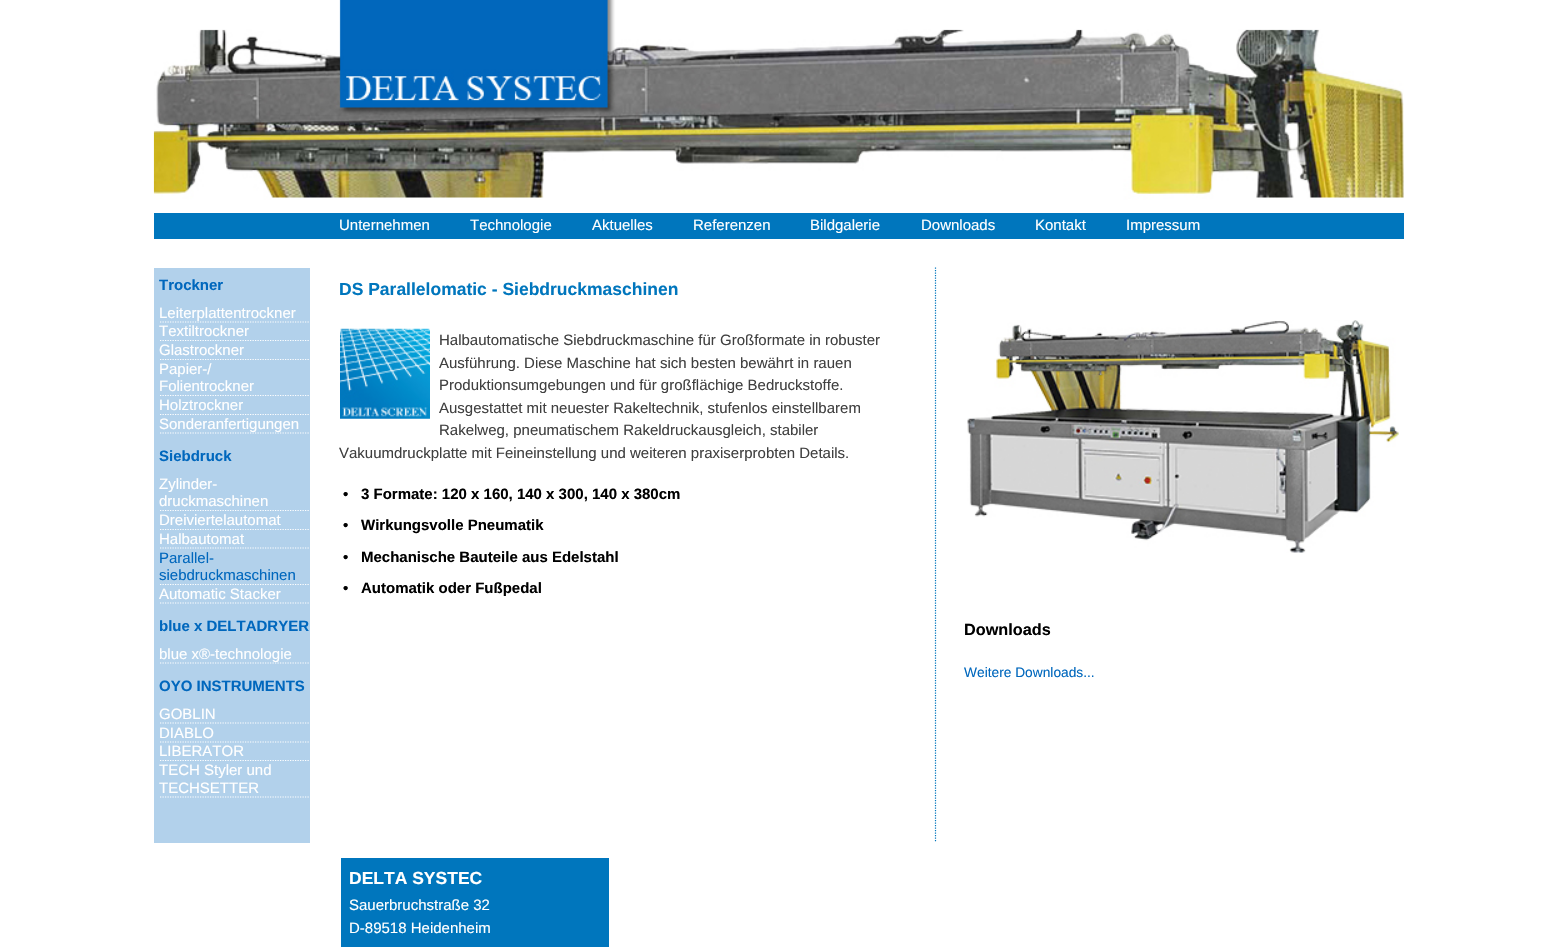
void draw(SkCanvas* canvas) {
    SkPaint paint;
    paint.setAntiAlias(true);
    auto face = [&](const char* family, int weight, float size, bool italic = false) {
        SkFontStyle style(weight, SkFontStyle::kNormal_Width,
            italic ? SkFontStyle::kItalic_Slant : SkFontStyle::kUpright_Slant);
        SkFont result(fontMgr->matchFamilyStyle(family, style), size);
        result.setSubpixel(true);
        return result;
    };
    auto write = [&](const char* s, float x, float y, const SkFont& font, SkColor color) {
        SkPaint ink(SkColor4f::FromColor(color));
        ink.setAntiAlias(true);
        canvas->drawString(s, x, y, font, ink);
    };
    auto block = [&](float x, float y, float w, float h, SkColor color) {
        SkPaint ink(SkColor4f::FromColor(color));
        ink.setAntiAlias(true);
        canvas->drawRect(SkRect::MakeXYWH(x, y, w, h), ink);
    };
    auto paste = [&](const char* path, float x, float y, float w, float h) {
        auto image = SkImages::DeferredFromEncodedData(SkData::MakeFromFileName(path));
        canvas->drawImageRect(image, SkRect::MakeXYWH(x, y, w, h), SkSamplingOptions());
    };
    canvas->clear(SK_ColorWHITE);
    paste("pic1.png", 153, 0, 1251, 200);
    block(154, 213, 1250, 26, SkColorSetRGB(0, 118, 189));
    auto kFont1 = face("Liberation Sans", 400, 15);
    write("Unternehmen", 339, 230, kFont1, SK_ColorWHITE);
    write("Technologie", 470, 230, kFont1, SK_ColorWHITE);
    write("Aktuelles", 592, 230, kFont1, SK_ColorWHITE);
    write("Referenzen", 693, 230, kFont1, SK_ColorWHITE);
    write("Bildgalerie", 810, 230, kFont1, SK_ColorWHITE);
    write("Downloads", 921, 230, kFont1, SK_ColorWHITE);
    write("Kontakt", 1035, 230, kFont1, SK_ColorWHITE);
    write("Impressum", 1126, 230, kFont1, SK_ColorWHITE);
    block(154, 268, 156, 575, SkColorSetRGB(178, 209, 235));
    auto kFont2 = face("Liberation Sans", 700, 15);
    write("Trockner", 159, 290, kFont2, SkColorSetRGB(0, 103, 189));
    paint.setStyle(SkPaint::kStroke_Style);
    paint.setStrokeWidth(1.2f);
    paint.setColor(SK_ColorWHITE);
    paint.setPathEffect(SkDashPathEffect::Make({{1.25f, 1.25f}}, 0));
    canvas->drawPath(SkPathBuilder().moveTo(160, 322).lineTo(309, 322).detach(), paint);
    paint.setPathEffect(nullptr);
    write("Leiterplattentrockner", 159, 318, kFont1, SK_ColorWHITE);
    paint.setPathEffect(SkDashPathEffect::Make({{1.25f, 1.25f}}, 0));
    canvas->drawPath(SkPathBuilder().moveTo(160, 340.5f).lineTo(309, 340.5f).detach(), paint);
    paint.setPathEffect(nullptr);
    write("Textiltrockner", 159, 336, kFont1, SK_ColorWHITE);
    paint.setPathEffect(SkDashPathEffect::Make({{1.25f, 1.25f}}, 0));
    canvas->drawPath(SkPathBuilder().moveTo(160, 359.5f).lineTo(309, 359.5f).detach(), paint);
    paint.setPathEffect(nullptr);
    write("Glastrockner", 159, 355, kFont1, SK_ColorWHITE);
    paint.setPathEffect(SkDashPathEffect::Make({{1.25f, 1.25f}}, 0));
    canvas->drawPath(SkPathBuilder().moveTo(160, 395.5f).lineTo(309, 395.5f).detach(), paint);
    paint.setPathEffect(nullptr);
    write("Papier-/", 159, 374, kFont1, SK_ColorWHITE);
    write("Folientrockner", 159, 391, kFont1, SK_ColorWHITE);
    paint.setPathEffect(SkDashPathEffect::Make({{1.25f, 1.25f}}, 0));
    canvas->drawPath(SkPathBuilder().moveTo(160, 414.5f).lineTo(309, 414.5f).detach(), paint);
    paint.setPathEffect(nullptr);
    write("Holztrockner", 159, 410, kFont1, SK_ColorWHITE);
    paint.setPathEffect(SkDashPathEffect::Make({{1.25f, 1.25f}}, 0));
    canvas->drawPath(SkPathBuilder().moveTo(160, 433).lineTo(309, 433).detach(), paint);
    paint.setPathEffect(nullptr);
    write("Sonderanfertigungen", 159, 429, kFont1, SK_ColorWHITE);
    write("Siebdruck", 159, 461, kFont2, SkColorSetRGB(0, 103, 189));
    paint.setPathEffect(SkDashPathEffect::Make({{1.25f, 1.25f}}, 0));
    canvas->drawPath(SkPathBuilder().moveTo(160, 510.5f).lineTo(309, 510.5f).detach(), paint);
    paint.setPathEffect(nullptr);
    write("Zylinder-", 159, 489, kFont1, SK_ColorWHITE);
    write("druckmaschinen", 159, 506, kFont1, SK_ColorWHITE);
    paint.setPathEffect(SkDashPathEffect::Make({{1.25f, 1.25f}}, 0));
    canvas->drawPath(SkPathBuilder().moveTo(160, 529.5f).lineTo(309, 529.5f).detach(), paint);
    paint.setPathEffect(nullptr);
    write("Dreiviertelautomat", 159, 525, kFont1, SK_ColorWHITE);
    paint.setPathEffect(SkDashPathEffect::Make({{1.25f, 1.25f}}, 0));
    canvas->drawPath(SkPathBuilder().moveTo(160, 548).lineTo(309, 548).detach(), paint);
    paint.setPathEffect(nullptr);
    write("Halbautomat", 159, 544, kFont1, SK_ColorWHITE);
    paint.setPathEffect(SkDashPathEffect::Make({{1.25f, 1.25f}}, 0));
    canvas->drawPath(SkPathBuilder().moveTo(160, 584.5f).lineTo(309, 584.5f).detach(), paint);
    paint.setPathEffect(nullptr);
    write("Parallel-", 159, 563, kFont1, SkColorSetRGB(0, 103, 189));
    write("siebdruckmaschinen", 159, 580, kFont1, SkColorSetRGB(0, 103, 189));
    paint.setPathEffect(SkDashPathEffect::Make({{1.25f, 1.25f}}, 0));
    canvas->drawPath(SkPathBuilder().moveTo(160, 603).lineTo(309, 603).detach(), paint);
    paint.setPathEffect(nullptr);
    write("Automatic Stacker", 159, 599, kFont1, SK_ColorWHITE);
    write("blue x DELTADRYER", 159, 631, kFont2, SkColorSetRGB(0, 103, 189));
    paint.setPathEffect(SkDashPathEffect::Make({{1.25f, 1.25f}}, 0));
    canvas->drawPath(SkPathBuilder().moveTo(160, 663).lineTo(309, 663).detach(), paint);
    paint.setPathEffect(nullptr);
    write("blue x®-technologie", 159, 659, kFont1, SK_ColorWHITE);
    write("OYO INSTRUMENTS", 159, 691, kFont2, SkColorSetRGB(0, 103, 189));
    paint.setPathEffect(SkDashPathEffect::Make({{1.25f, 1.25f}}, 0));
    canvas->drawPath(SkPathBuilder().moveTo(160, 723).lineTo(309, 723).detach(), paint);
    paint.setPathEffect(nullptr);
    write("GOBLIN", 159, 719, kFont1, SK_ColorWHITE);
    paint.setPathEffect(SkDashPathEffect::Make({{1.25f, 1.25f}}, 0));
    canvas->drawPath(SkPathBuilder().moveTo(160, 742).lineTo(309, 742).detach(), paint);
    paint.setPathEffect(nullptr);
    write("DIABLO", 159, 738, kFont1, SK_ColorWHITE);
    paint.setPathEffect(SkDashPathEffect::Make({{1.25f, 1.25f}}, 0));
    canvas->drawPath(SkPathBuilder().moveTo(160, 760.5f).lineTo(309, 760.5f).detach(), paint);
    paint.setPathEffect(nullptr);
    write("LIBERATOR", 159, 756, kFont1, SK_ColorWHITE);
    paint.setPathEffect(SkDashPathEffect::Make({{1.25f, 1.25f}}, 0));
    canvas->drawPath(SkPathBuilder().moveTo(160, 797).lineTo(309, 797).detach(), paint);
    paint.setPathEffect(nullptr);
    write("TECH Styler und", 159, 775, kFont1, SK_ColorWHITE);
    write("TECHSETTER", 159, 793, kFont1, SK_ColorWHITE);
    paint.setColor(SkColorSetRGB(0, 118, 189));
    paint.setPathEffect(SkDashPathEffect::Make({{1.25f, 1.25f}}, 0));
    canvas->drawPath(SkPathBuilder().moveTo(935.5f, 267.5f).lineTo(935.5f, 842.5f).detach(), paint);
    paint.setPathEffect(nullptr);
    auto kFont3 = face("Liberation Sans", 700, 17.5f);
    write("DS Parallelomatic - Siebdruckmaschinen", 339, 295, kFont3, SkColorSetRGB(0, 118, 189));
    paste("pic2.png", 340, 328, 90, 91);
    write("Halbautomatische Siebdruckmaschine für Großformate in robuster", 439, 345, kFont1, SkColorSetRGB(64, 64, 64));
    write("Ausführung. Diese Maschine hat sich besten bewährt in rauen", 439, 368, kFont1, SkColorSetRGB(64, 64, 64));
    write("Produktionsumgebungen und für großflächige Bedruckstoffe.", 439, 390, kFont1, SkColorSetRGB(64, 64, 64));
    write("Ausgestattet mit neuester Rakeltechnik, stufenlos einstellbarem", 439, 413, kFont1, SkColorSetRGB(64, 64, 64));
    write("Rakelweg, pneumatischem Rakeldruckausgleich, stabiler", 439, 435, kFont1, SkColorSetRGB(64, 64, 64));
    write("Vakuumdruckplatte mit Feineinstellung und weiteren praxiserprobten Details.", 339, 458, kFont1, SkColorSetRGB(64, 64, 64));
    write("•", 343, 499, kFont2, SK_ColorBLACK);
    write("3 Formate: 120 x 160, 140 x 300, 140 x 380cm", 361, 499, kFont2, SK_ColorBLACK);
    write("•", 343, 530, kFont2, SK_ColorBLACK);
    write("Wirkungsvolle Pneumatik", 361, 530, kFont2, SK_ColorBLACK);
    write("•", 343, 562, kFont2, SK_ColorBLACK);
    write("Mechanische Bauteile aus Edelstahl", 361, 562, kFont2, SK_ColorBLACK);
    write("•", 343, 593, kFont2, SK_ColorBLACK);
    write("Automatik oder Fußpedal", 361, 593, kFont2, SK_ColorBLACK);
    paste("pic3.png", 967, 320, 432, 233);
    auto kFont4 = face("Liberation Sans", 700, 16.25f);
    write("Downloads", 964, 635, kFont4, SK_ColorBLACK);
    auto kFont5 = face("Liberation Sans", 400, 13.75f);
    write("Weitere Downloads...", 964, 677, kFont5, SkColorSetRGB(0, 103, 189));
    block(341, 858, 268, 89, SkColorSetRGB(0, 118, 189));
    write("DELTA SYSTEC", 349, 884, kFont3, SK_ColorWHITE);
    write("Sauerbruchstraße 32", 349, 910, kFont1, SK_ColorWHITE);
    write("D-89518 Heidenheim", 349, 933, kFont1, SK_ColorWHITE);
}
